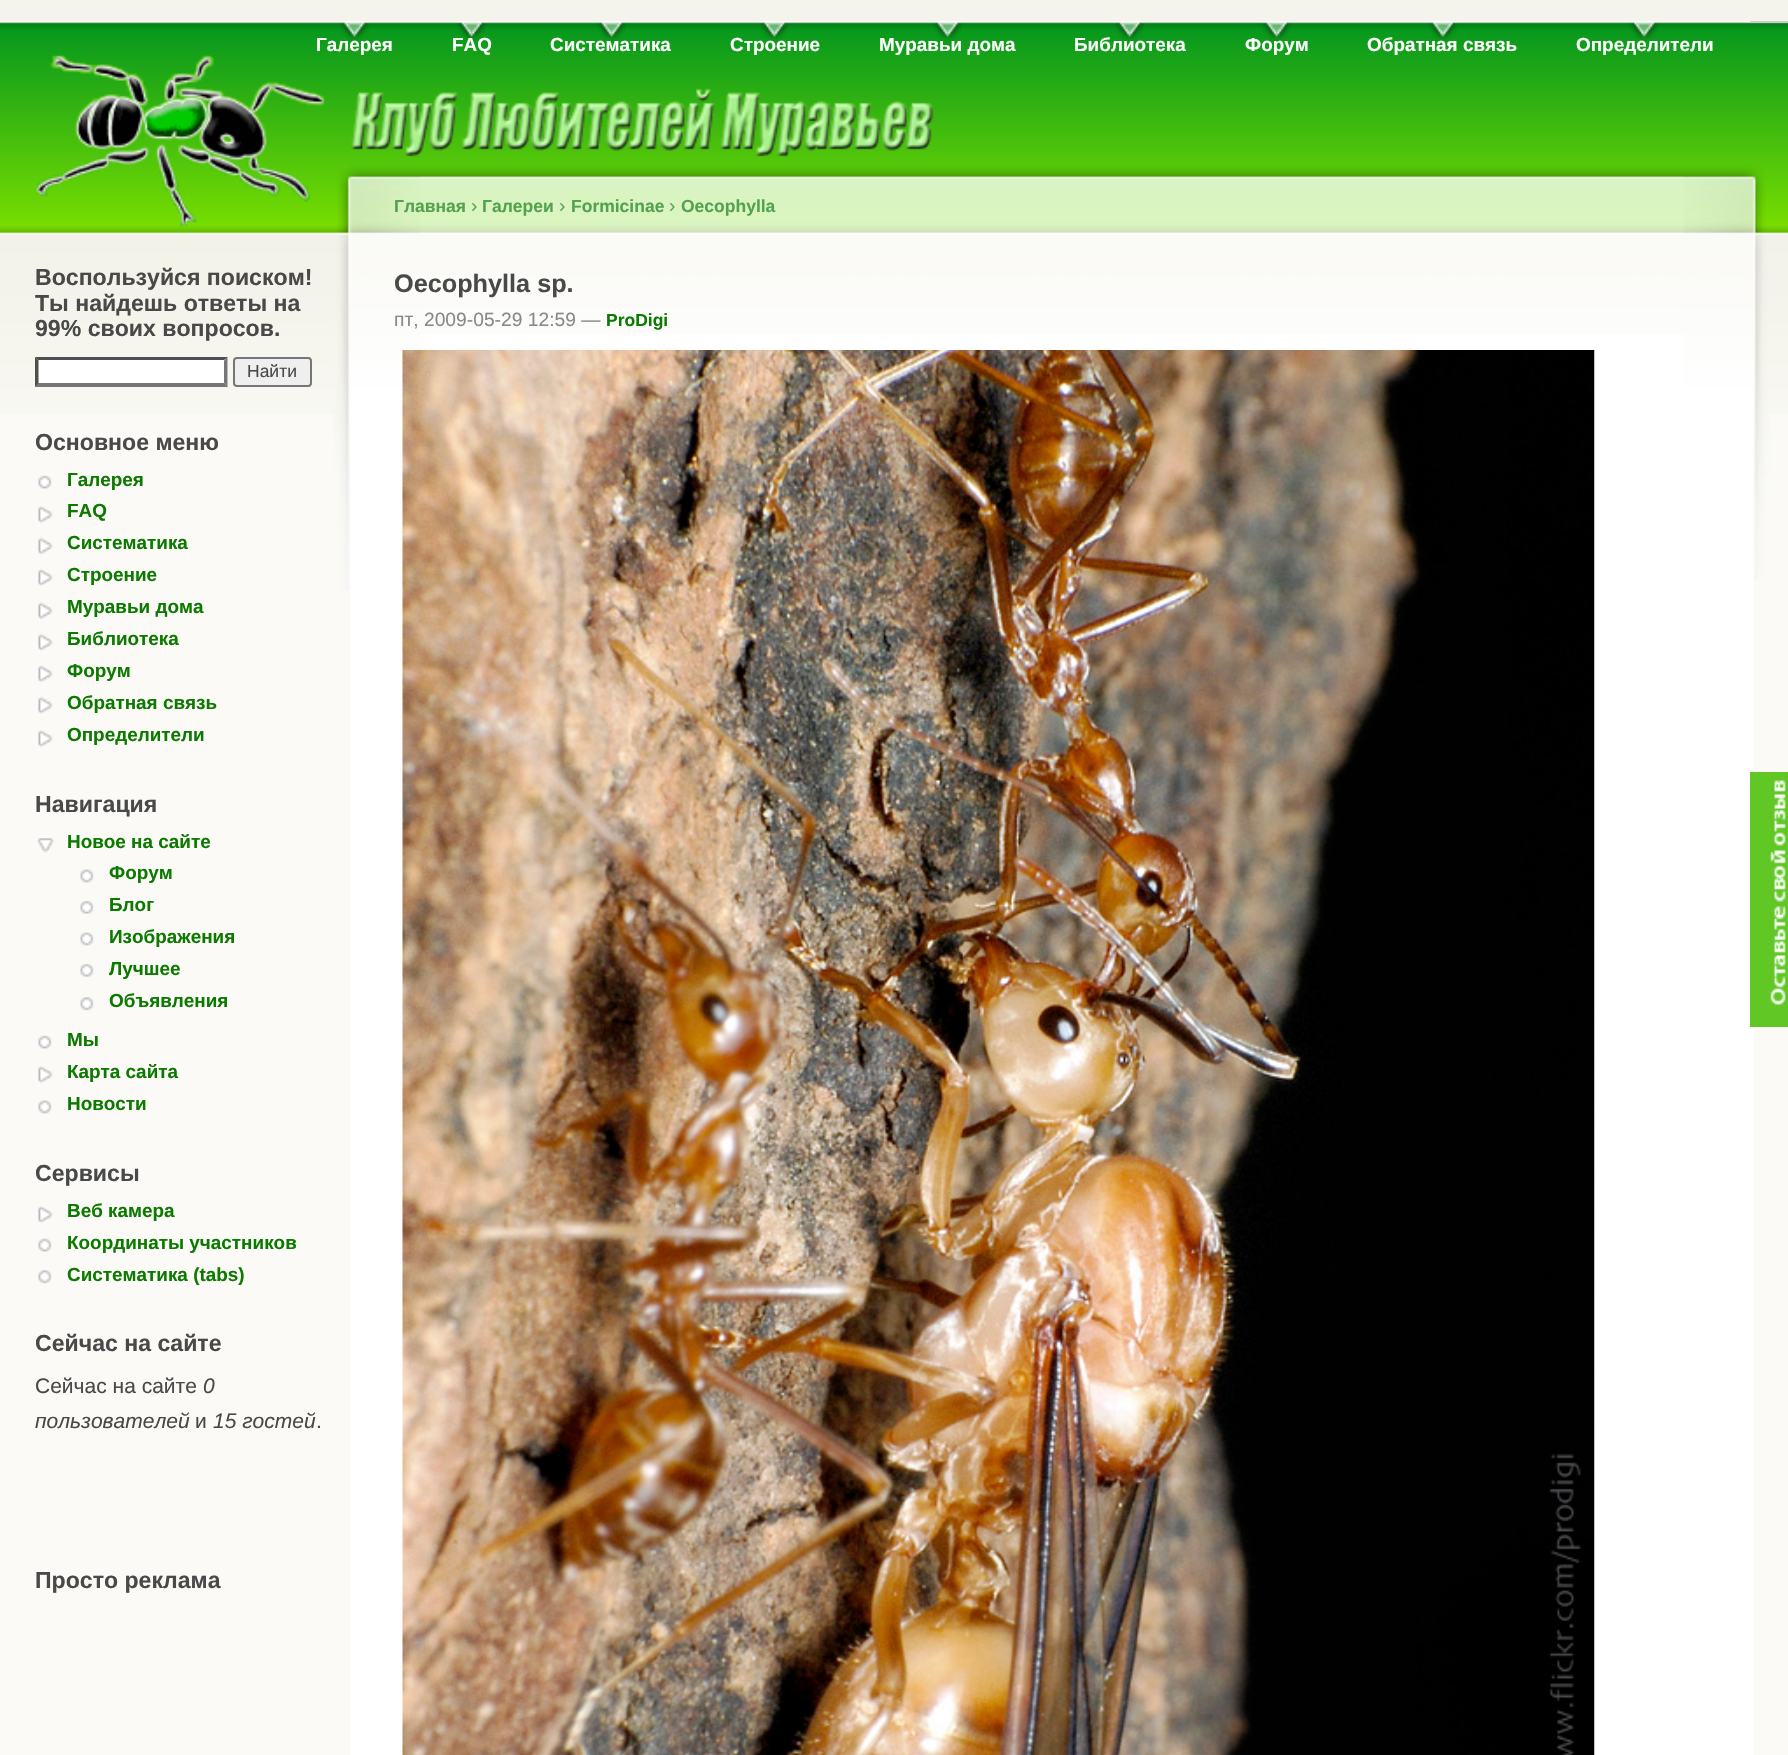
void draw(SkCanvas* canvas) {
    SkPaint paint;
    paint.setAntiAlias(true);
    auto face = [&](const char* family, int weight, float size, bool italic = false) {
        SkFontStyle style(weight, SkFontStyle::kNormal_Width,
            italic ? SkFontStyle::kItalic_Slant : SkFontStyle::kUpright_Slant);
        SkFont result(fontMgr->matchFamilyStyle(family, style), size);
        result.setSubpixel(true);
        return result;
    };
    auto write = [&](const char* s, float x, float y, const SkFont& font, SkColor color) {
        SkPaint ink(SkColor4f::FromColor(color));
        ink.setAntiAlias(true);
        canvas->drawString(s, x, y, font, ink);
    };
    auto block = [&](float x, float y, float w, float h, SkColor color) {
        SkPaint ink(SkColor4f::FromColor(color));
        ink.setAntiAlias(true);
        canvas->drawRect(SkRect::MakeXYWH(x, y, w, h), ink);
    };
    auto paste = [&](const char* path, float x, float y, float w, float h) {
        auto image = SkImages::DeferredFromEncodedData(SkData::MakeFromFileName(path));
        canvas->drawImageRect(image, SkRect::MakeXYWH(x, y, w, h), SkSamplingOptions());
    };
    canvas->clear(SkColorSetRGB(251, 250, 247));
    block(0, 0, 1788, 21, SkColorSetRGB(245, 244, 236));
    paste("pic1.png", 0, 21, 1788, 393);
    paste("pic2.png", 340, 22, 29, 19);
    auto kFont1 = face("Liberation Sans", 700, 18.9f);
    write("Галерея", 316, 51, kFont1, SK_ColorWHITE);
    paste("pic3.png", 457, 22, 29, 19);
    write("FAQ", 452, 51, kFont1, SK_ColorWHITE);
    paste("pic3.png", 597, 22, 29, 19);
    write("Систематика", 550, 51, kFont1, SK_ColorWHITE);
    paste("pic2.png", 760, 22, 29, 19);
    write("Строение", 730, 51, kFont1, SK_ColorWHITE);
    paste("pic3.png", 933, 22, 29, 19);
    write("Муравьи дома", 879, 51, kFont1, SK_ColorWHITE);
    paste("pic3.png", 1115, 22, 29, 19);
    write("Библиотека", 1074, 51, kFont1, SK_ColorWHITE);
    paste("pic3.png", 1262, 22, 29, 19);
    write("Форум", 1245, 51, kFont1, SK_ColorWHITE);
    paste("pic4.png", 1428, 22, 30, 19);
    write("Обратная связь", 1367, 51, kFont1, SK_ColorWHITE);
    paste("pic5.png", 1629, 22, 30, 19);
    write("Определители", 1576, 51, kFont1, SK_ColorWHITE);
    paste("pic18.png", 350, 161, 1334, 173);
    block(350, 334, 1404, 1421, SK_ColorWHITE);
    paste("pic20.png", 333, 168, 87, 422);
    paste("pic6.png", 36, 55, 898, 172);
    auto kFont2 = face("Liberation Sans", 700, 23.1f);
    write("Воспользуйся поиском!", 35, 285, kFont2, SkColorSetRGB(73, 73, 73));
    write("Ты найдешь ответы на", 35, 311, kFont2, SkColorSetRGB(73, 73, 73));
    write("99% своих вопросов.", 35, 336, kFont2, SkColorSetRGB(73, 73, 73));
    block(35, 357, 193, 30, SK_ColorWHITE);
    paint.setColor(SkColorSetRGB(79, 79, 79));
    canvas->drawPath(SkPathBuilder().moveTo(35, 357).lineTo(228, 357).lineTo(224, 360).lineTo(38, 360).close().detach(), paint);
    paint.setColor(SkColorSetRGB(118, 118, 118));
    canvas->drawPath(SkPathBuilder().moveTo(227.5f, 357).lineTo(227.5f, 387).lineTo(224, 383).lineTo(224, 360.5f).close().detach(), paint);
    canvas->drawPath(SkPathBuilder().moveTo(228, 387).lineTo(35, 387).lineTo(38, 383).lineTo(224, 383).close().detach(), paint);
    paint.setColor(SkColorSetRGB(79, 79, 79));
    canvas->drawPath(SkPathBuilder().moveTo(35, 387).lineTo(35, 357).lineTo(38.5f, 360.5f).lineTo(38.5f, 383).close().detach(), paint);
    paint.setColor(SkColorSetRGB(239, 239, 239));
    canvas->drawRoundRect(SkRect::MakeXYWH(234, 358, 77, 28), 3, 3, paint);
    paint.setStyle(SkPaint::kStroke_Style);
    paint.setStrokeWidth(2);
    paint.setColor(SkColorSetRGB(118, 118, 118));
    canvas->drawRoundRect(SkRect::MakeXYWH(234, 358, 77, 28), 3, 3, paint);
    auto kFont3 = face("Liberation Sans", 400, 17.5f);
    write("Найти", 247, 377, kFont3, SkColorSetRGB(73, 73, 73));
    write("Основное меню", 35, 450, kFont2, SkColorSetRGB(73, 73, 73));
    paste("pic7.png", 38, 475, 14, 14);
    write("Галерея", 67, 486, kFont1, SkColorSetRGB(12, 122, 0));
    paste("pic8.png", 38, 505, 15, 19);
    write("FAQ", 67, 517, kFont1, SkColorSetRGB(12, 122, 0));
    paste("pic9.png", 38, 537, 15, 18);
    write("Систематика", 67, 549, kFont1, SkColorSetRGB(12, 122, 0));
    paste("pic8.png", 38, 568, 15, 19);
    write("Строение", 67, 581, kFont1, SkColorSetRGB(12, 122, 0));
    paste("pic10.png", 38, 602, 15, 18);
    write("Муравьи дома", 67, 613, kFont1, SkColorSetRGB(12, 122, 0));
    paste("pic11.png", 38, 633, 15, 18);
    write("Библиотека", 67, 645, kFont1, SkColorSetRGB(12, 122, 0));
    paste("pic10.png", 38, 665, 15, 18);
    write("Форум", 67, 677, kFont1, SkColorSetRGB(12, 122, 0));
    paste("pic11.png", 38, 696, 15, 18);
    write("Обратная связь", 67, 709, kFont1, SkColorSetRGB(12, 122, 0));
    paste("pic8.png", 38, 729, 15, 19);
    write("Определители", 67, 741, kFont1, SkColorSetRGB(12, 122, 0));
    write("Навигация", 35, 812, kFont2, SkColorSetRGB(73, 73, 73));
    paste("pic12.png", 36, 838, 19, 15);
    write("Новое на сайте", 67, 848, kFont1, SkColorSetRGB(12, 122, 0));
    paste("pic13.png", 80, 869, 14, 14);
    write("Форум", 109, 879, kFont1, SkColorSetRGB(12, 122, 0));
    paste("pic14.png", 80, 901, 14, 13);
    write("Блог", 109, 911, kFont1, SkColorSetRGB(12, 122, 0));
    paste("pic13.png", 80, 932, 14, 14);
    write("Изображения", 109, 943, kFont1, SkColorSetRGB(12, 122, 0));
    paste("pic14.png", 80, 964, 14, 13);
    write("Лучшее", 109, 975, kFont1, SkColorSetRGB(12, 122, 0));
    paste("pic15.png", 80, 997, 14, 14);
    write("Объявления", 109, 1007, kFont1, SkColorSetRGB(12, 122, 0));
    paste("pic7.png", 38, 1035, 14, 14);
    write("Мы", 67, 1046, kFont1, SkColorSetRGB(12, 122, 0));
    paste("pic8.png", 38, 1065, 15, 19);
    write("Карта сайта", 67, 1078, kFont1, SkColorSetRGB(12, 122, 0));
    paste("pic16.png", 38, 1100, 14, 14);
    write("Новости", 67, 1110, kFont1, SkColorSetRGB(12, 122, 0));
    write("Сервисы", 35, 1181, kFont2, SkColorSetRGB(73, 73, 73));
    paste("pic8.png", 38, 1205, 15, 19);
    write("Веб камера", 67, 1217, kFont1, SkColorSetRGB(12, 122, 0));
    paste("pic7.png", 38, 1238, 14, 14);
    write("Координаты участников", 67, 1249, kFont1, SkColorSetRGB(12, 122, 0));
    paste("pic17.png", 38, 1270, 14, 14);
    write("Систематика (tabs)", 67, 1281, kFont1, SkColorSetRGB(12, 122, 0));
    write("Сейчас на сайте", 35, 1351, kFont2, SkColorSetRGB(73, 73, 73));
    auto kFont4 = face("Liberation Sans", 400, 21);
    write("Сейчас на сайте", 35, 1393, kFont4, SkColorSetRGB(73, 73, 73));
    auto kFont5 = face("Liberation Sans", 400, 21, true);
    write("0", 203, 1393, kFont5, SkColorSetRGB(73, 73, 73));
    write("пользователей", 35, 1428, kFont5, SkColorSetRGB(73, 73, 73));
    write("и", 195, 1428, kFont4, SkColorSetRGB(73, 73, 73));
    write("15 гостей", 213, 1428, kFont5, SkColorSetRGB(73, 73, 73));
    write(".", 316, 1428, kFont4, SkColorSetRGB(73, 73, 73));
    write("Просто реклама", 35, 1588, kFont2, SkColorSetRGB(73, 73, 73));
    paste("pic19.png", 1683, 161, 88, 419);
    auto kFont6 = face("Liberation Sans", 700, 17.5f);
    write("Главная", 394, 212, kFont6, SkColorSetRGB(82, 162, 79));
    auto kFont7 = face("Liberation Sans", 400, 19.25f);
    write("›", 471, 212, kFont7, SkColorSetRGB(82, 162, 79));
    write("Галереи", 482, 212, kFont6, SkColorSetRGB(82, 162, 79));
    write("›", 559, 212, kFont7, SkColorSetRGB(82, 162, 79));
    write("Formicinae", 571, 212, kFont6, SkColorSetRGB(82, 162, 79));
    write("›", 669, 212, kFont7, SkColorSetRGB(82, 162, 79));
    write("Oecophylla", 681, 212, kFont6, SkColorSetRGB(82, 162, 79));
    block(1750, 21, 38, 2, SkColorSetRGB(204, 204, 204));
    block(1750, 772, 38, 255, SkColorSetRGB(96, 199, 36));
    paste("pic21.png", 1770, 780, 16, 225);
    auto kFont8 = face("Liberation Sans", 700, 25.25f);
    write("Oecophylla sp.", 394, 292, kFont8, SkColorSetRGB(73, 73, 73));
    write("пт, 2009-05-29 12:59 —", 394, 326, kFont7, SkColorSetRGB(137, 137, 137));
    write("ProDigi", 606, 326, kFont6, SkColorSetRGB(12, 122, 0));
    paste("pic22.png", 402, 350, 1193, 1405);
}
